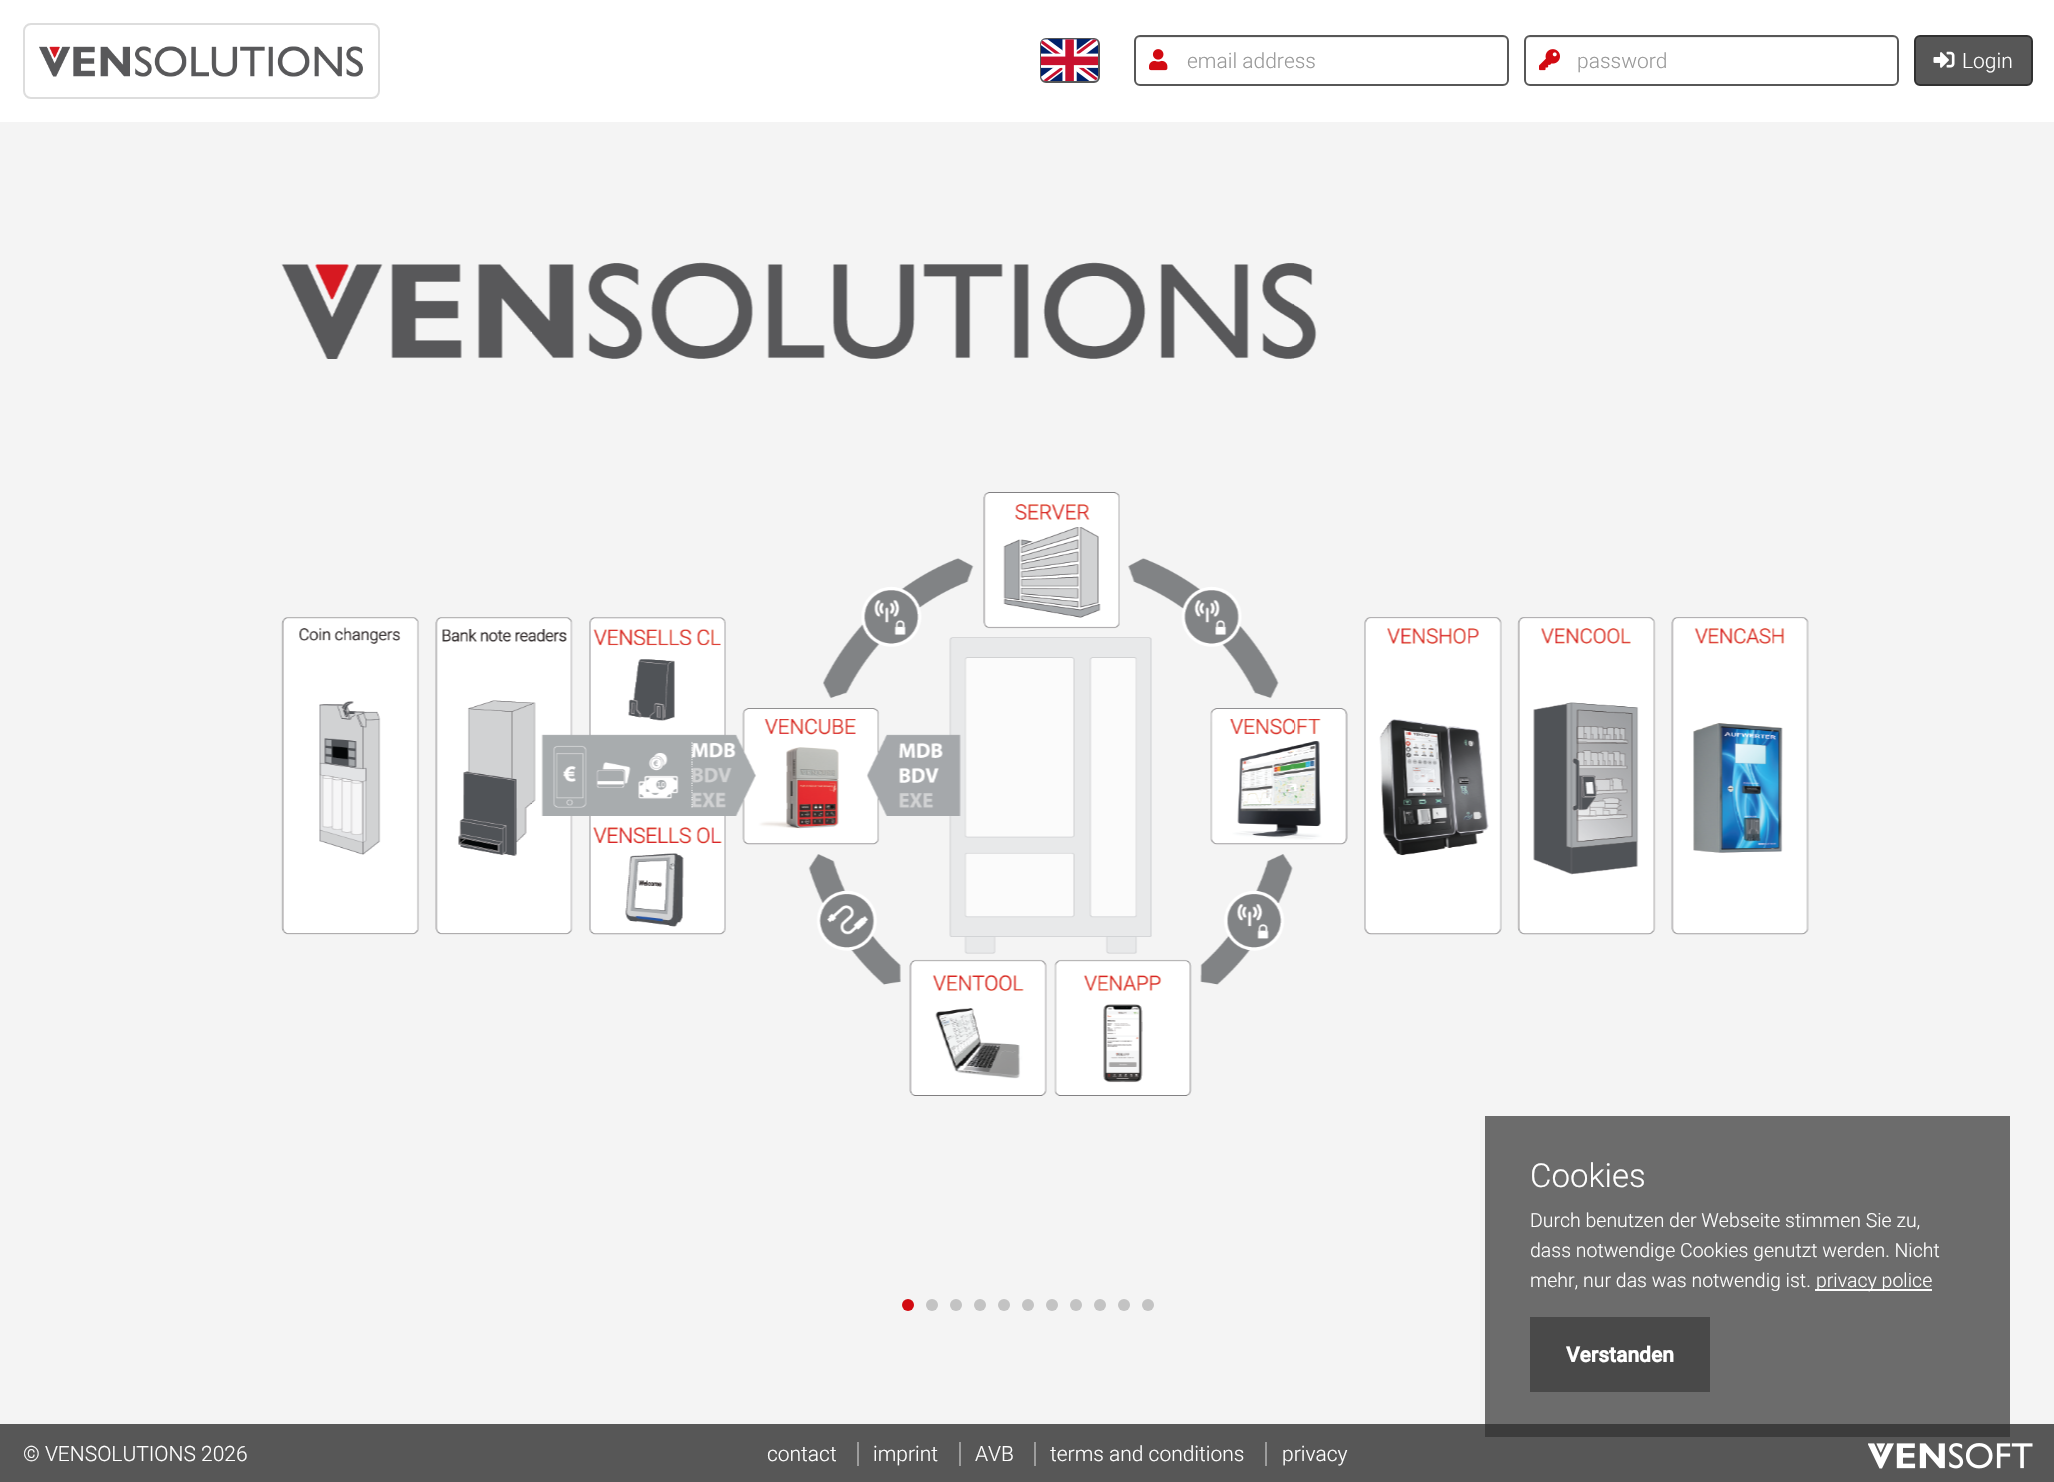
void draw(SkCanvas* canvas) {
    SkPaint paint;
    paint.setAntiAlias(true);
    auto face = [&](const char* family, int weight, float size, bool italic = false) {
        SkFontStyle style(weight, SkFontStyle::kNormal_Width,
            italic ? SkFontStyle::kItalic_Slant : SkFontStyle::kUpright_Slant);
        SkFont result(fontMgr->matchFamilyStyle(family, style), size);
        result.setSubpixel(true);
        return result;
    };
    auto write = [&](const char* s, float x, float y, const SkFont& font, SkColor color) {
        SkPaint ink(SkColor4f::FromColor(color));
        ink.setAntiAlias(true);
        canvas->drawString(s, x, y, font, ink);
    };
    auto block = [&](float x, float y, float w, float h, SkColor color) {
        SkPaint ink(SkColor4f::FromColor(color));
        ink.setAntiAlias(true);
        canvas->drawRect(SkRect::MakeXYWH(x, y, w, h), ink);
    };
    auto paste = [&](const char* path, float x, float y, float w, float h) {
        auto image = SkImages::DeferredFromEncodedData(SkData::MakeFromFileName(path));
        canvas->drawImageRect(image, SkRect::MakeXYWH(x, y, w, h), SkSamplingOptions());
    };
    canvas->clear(SkColorSetRGB(244, 244, 244));
    block(1485, 1116, 525, 308, SkColorSetRGB(108, 108, 108));
    block(0, 0, 2054, 122, SK_ColorWHITE);
    paint.setStyle(SkPaint::kStroke_Style);
    paint.setStrokeWidth(2);
    paint.setColor(SkColorSetRGB(221, 221, 221));
    canvas->drawRoundRect(SkRect::MakeXYWH(24, 24, 355, 74), 7, 7, paint);
    paste("pic1.png", 39, 46, 324, 31);
    paint.setColor(SkColorSetRGB(87, 87, 87));
    canvas->drawRoundRect(SkRect::MakeXYWH(1041, 39, 58, 43), 5, 5, paint);
    paste("pic2.png", 1041, 39, 57, 42);
    paint.setStyle(SkPaint::kFill_Style);
    paint.setColor(SkColorSetRGB(236, 236, 236));
    canvas->drawPath(SkPathBuilder().moveTo(1140, 38).lineTo(1503, 38).cubicTo(1505, 38, 1508, 40, 1508, 42).lineTo(1508, 41).cubicTo(1508, 38, 1506, 36, 1503, 36).lineTo(1141, 36).cubicTo(1138, 36, 1136, 38, 1136, 41).lineTo(1136, 42).cubicTo(1136, 40, 1138, 38, 1140, 38).close().detach(), paint);
    paint.setStyle(SkPaint::kStroke_Style);
    paint.setColor(SkColorSetRGB(87, 87, 87));
    canvas->drawRoundRect(SkRect::MakeXYWH(1135, 36, 373, 49), 5, 5, paint);
    paste("pic3.png", 1149, 49, 19, 22);
    auto kFont1 = face("Roboto", 300, 21);
    write("email address", 1187, 68, kFont1, SkColorSetRGB(153, 153, 153));
    paint.setStyle(SkPaint::kFill_Style);
    paint.setColor(SkColorSetRGB(236, 236, 236));
    canvas->drawPath(SkPathBuilder().moveTo(1530, 38).lineTo(1893, 38).cubicTo(1895, 38, 1898, 40, 1898, 42).lineTo(1898, 41).cubicTo(1898, 38, 1896, 36, 1893, 36).lineTo(1531, 36).cubicTo(1528, 36, 1526, 38, 1526, 41).lineTo(1526, 42).cubicTo(1526, 40, 1528, 38, 1530, 38).close().detach(), paint);
    paint.setStyle(SkPaint::kStroke_Style);
    paint.setColor(SkColorSetRGB(87, 87, 87));
    canvas->drawRoundRect(SkRect::MakeXYWH(1525, 36, 373, 49), 5, 5, paint);
    paste("pic4.png", 1539, 49, 21, 22);
    write("password", 1577, 68, kFont1, SkColorSetRGB(153, 153, 153));
    paint.setStyle(SkPaint::kFill_Style);
    canvas->drawRoundRect(SkRect::MakeXYWH(1915, 36, 117, 49), 5, 5, paint);
    paint.setStyle(SkPaint::kStroke_Style);
    paint.setColor(SkColorSetRGB(49, 49, 49));
    canvas->drawRoundRect(SkRect::MakeXYWH(1915, 36, 117, 49), 5, 5, paint);
    paste("pic5.png", 1933, 51, 22, 17);
    write("Login", 1962, 68, kFont1, SK_ColorWHITE);
    paste("pic6.png", 281, 262, 1528, 834);
    paint.setStyle(SkPaint::kFill_Style);
    paint.setColor(SkColorSetRGB(210, 10, 17));
    canvas->drawCircle(908, 1305, 6, paint);
    paint.setColor(SkColorSetRGB(195, 195, 195));
    canvas->drawCircle(932, 1305, 6, paint);
    canvas->drawCircle(956, 1305, 6, paint);
    canvas->drawCircle(980, 1305, 6, paint);
    canvas->drawCircle(1004, 1305, 6, paint);
    canvas->drawCircle(1028, 1305, 6, paint);
    canvas->drawCircle(1052, 1305, 6, paint);
    canvas->drawCircle(1076, 1305, 6, paint);
    canvas->drawCircle(1100, 1305, 6, paint);
    canvas->drawCircle(1124, 1305, 6, paint);
    canvas->drawCircle(1148, 1305, 6, paint);
    auto kFont2 = face("Roboto", 300, 33);
    write("Cookies", 1530, 1187, kFont2, SK_ColorWHITE);
    auto kFont3 = face("Roboto", 300, 19.5f);
    write("Durch benutzen der Webseite stimmen Sie zu,", 1530, 1227, kFont3, SK_ColorWHITE);
    write("dass notwendige Cookies genutzt werden. Nicht", 1530, 1257, kFont3, SK_ColorWHITE);
    write("mehr, nur das was notwendig ist.", 1530, 1287, kFont3, SK_ColorWHITE);
    block(1815, 1289, 117, 2, SkColorSetRGB(252, 252, 252));
    write("privacy police", 1816, 1287, kFont3, SK_ColorWHITE);
    block(1530, 1317, 180, 75, SkColorSetRGB(73, 73, 73));
    auto kFont4 = face("Roboto", 700, 21);
    write("Verstanden", 1566, 1362, kFont4, SK_ColorWHITE);
    block(0, 1424, 2054, 58, SkColorSetRGB(87, 87, 87));
    block(1485, 1424, 525, 13, SkColorSetRGB(60, 60, 60));
    write("© VENSOLUTIONS 2026", 23, 1461, kFont1, SK_ColorWHITE);
    write("contact", 767, 1461, kFont1, SK_ColorWHITE);
    write("imprint", 873, 1461, kFont1, SK_ColorWHITE);
    block(857, 1442, 2, 24, SkColorSetRGB(156, 156, 156));
    write("AVB", 975, 1461, kFont1, SK_ColorWHITE);
    block(959, 1442, 2, 24, SkColorSetRGB(156, 156, 156));
    write("terms and conditions", 1050, 1461, kFont1, SK_ColorWHITE);
    block(1034, 1442, 2, 24, SkColorSetRGB(156, 156, 156));
    write("privacy", 1282, 1461, kFont1, SK_ColorWHITE);
    block(1265, 1442, 2, 24, SkColorSetRGB(156, 156, 156));
    paste("pic7.png", 1868, 1443, 165, 26);
}
